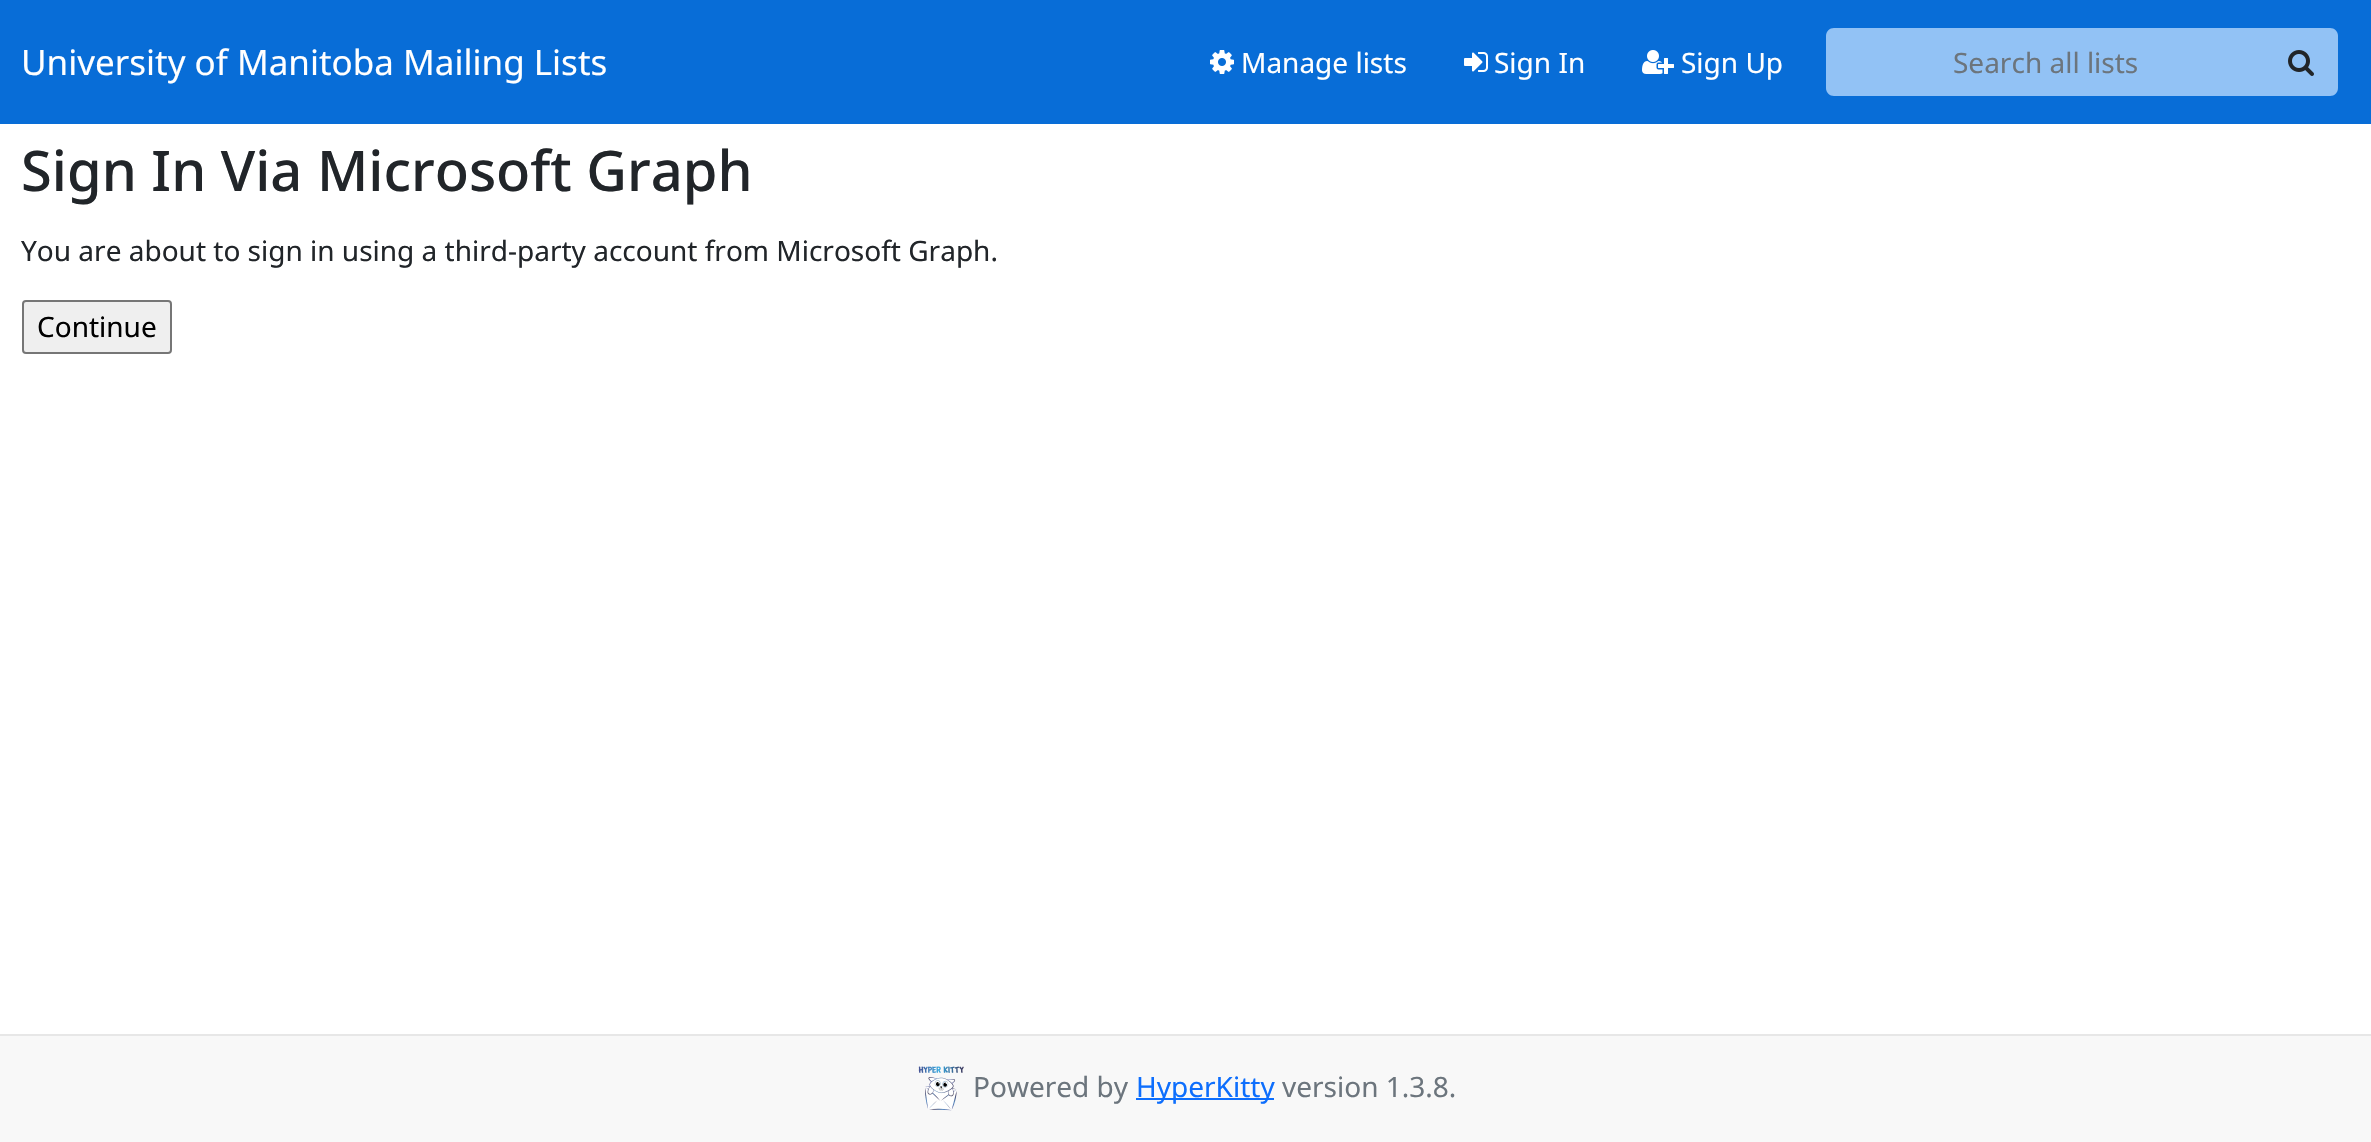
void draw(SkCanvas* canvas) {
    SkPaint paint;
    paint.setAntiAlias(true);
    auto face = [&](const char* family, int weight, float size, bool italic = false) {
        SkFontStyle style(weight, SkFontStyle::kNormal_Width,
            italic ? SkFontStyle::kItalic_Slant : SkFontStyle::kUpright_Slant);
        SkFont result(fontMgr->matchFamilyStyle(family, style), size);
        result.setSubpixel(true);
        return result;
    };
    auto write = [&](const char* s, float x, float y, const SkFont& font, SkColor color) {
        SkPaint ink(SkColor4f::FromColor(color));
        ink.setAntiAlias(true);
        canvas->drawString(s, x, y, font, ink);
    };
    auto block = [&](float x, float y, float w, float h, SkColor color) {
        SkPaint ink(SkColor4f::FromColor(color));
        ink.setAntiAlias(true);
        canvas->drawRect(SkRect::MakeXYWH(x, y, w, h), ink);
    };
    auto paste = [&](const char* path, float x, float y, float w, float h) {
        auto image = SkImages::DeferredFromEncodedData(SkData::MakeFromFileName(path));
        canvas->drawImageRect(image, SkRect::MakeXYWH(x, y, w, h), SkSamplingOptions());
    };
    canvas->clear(SK_ColorWHITE);
    block(0, 0, 2371, 124, SkColorSetRGB(8, 109, 215));
    auto kFont1 = face("Noto Sans", 400, 35);
    write("University of Manitoba Mailing Lists", 21, 75, kFont1, SK_ColorWHITE);
    paste("pic1.png", 1210, 50, 24, 24);
    auto kFont2 = face("Noto Sans", 400, 28);
    write("Manage lists", 1241, 73, kFont2, SK_ColorWHITE);
    paste("pic2.png", 1464, 52, 24, 20);
    write("Sign In", 1494, 73, kFont2, SK_ColorWHITE);
    paste("pic3.png", 1642, 50, 32, 24);
    write("Sign Up", 1681, 73, kFont2, SK_ColorWHITE);
    paint.setColor(SkColorSetRGB(146, 194, 245));
    canvas->drawPath(SkPathBuilder().moveTo(1834, 28).lineTo(2268, 28).lineTo(2268, 96).lineTo(1834, 96).cubicTo(1829.5f, 96, 1826, 92.5f, 1826, 88).lineTo(1826, 36).cubicTo(1826, 31.5f, 1829.5f, 28, 1834, 28).close().detach(), paint);
    write("Search all lists", 1953, 73, kFont2, SkColorSetRGB(108, 117, 125));
    canvas->drawPath(SkPathBuilder().moveTo(2266, 28).lineTo(2330, 28).cubicTo(2334.5f, 28, 2338, 31.5f, 2338, 36).lineTo(2338, 88).cubicTo(2338, 92.5f, 2334.5f, 96, 2330, 96).lineTo(2266, 96).close().detach(), paint);
    paste("pic4.png", 2288, 50, 26, 26);
    auto kFont3 = face("Noto Sans", 500, 56);
    write("Sign In Via Microsoft Graph", 21, 191, kFont3, SkColorSetRGB(33, 37, 41));
    write("You are about to sign in using a third-party account from Microsoft Graph.", 21, 261, kFont2, SkColorSetRGB(33, 37, 41));
    paint.setColor(SkColorSetRGB(239, 239, 239));
    canvas->drawRoundRect(SkRect::MakeXYWH(23, 301, 148, 52), 3, 3, paint);
    paint.setStyle(SkPaint::kStroke_Style);
    paint.setStrokeWidth(2);
    paint.setColor(SkColorSetRGB(118, 118, 118));
    canvas->drawRoundRect(SkRect::MakeXYWH(23, 301, 148, 52), 3, 3, paint);
    write("Continue", 37, 337, kFont2, SK_ColorBLACK);
    block(0, 1036, 2371, 106, SkColorSetRGB(248, 248, 248));
    block(0, 1034, 2371, 2, SkColorSetRGB(231, 231, 231));
    paste("pic5.png", 918, 1066, 46, 45);
    write("Powered by", 973, 1097, kFont2, SkColorSetRGB(108, 117, 125));
    block(1136, 1098, 138, 2, SkColorSetRGB(13, 110, 253));
    write("HyperKitty", 1136, 1097, kFont2, SkColorSetRGB(13, 110, 253));
    write("version 1.3.8.", 1282, 1097, kFont2, SkColorSetRGB(108, 117, 125));
}
